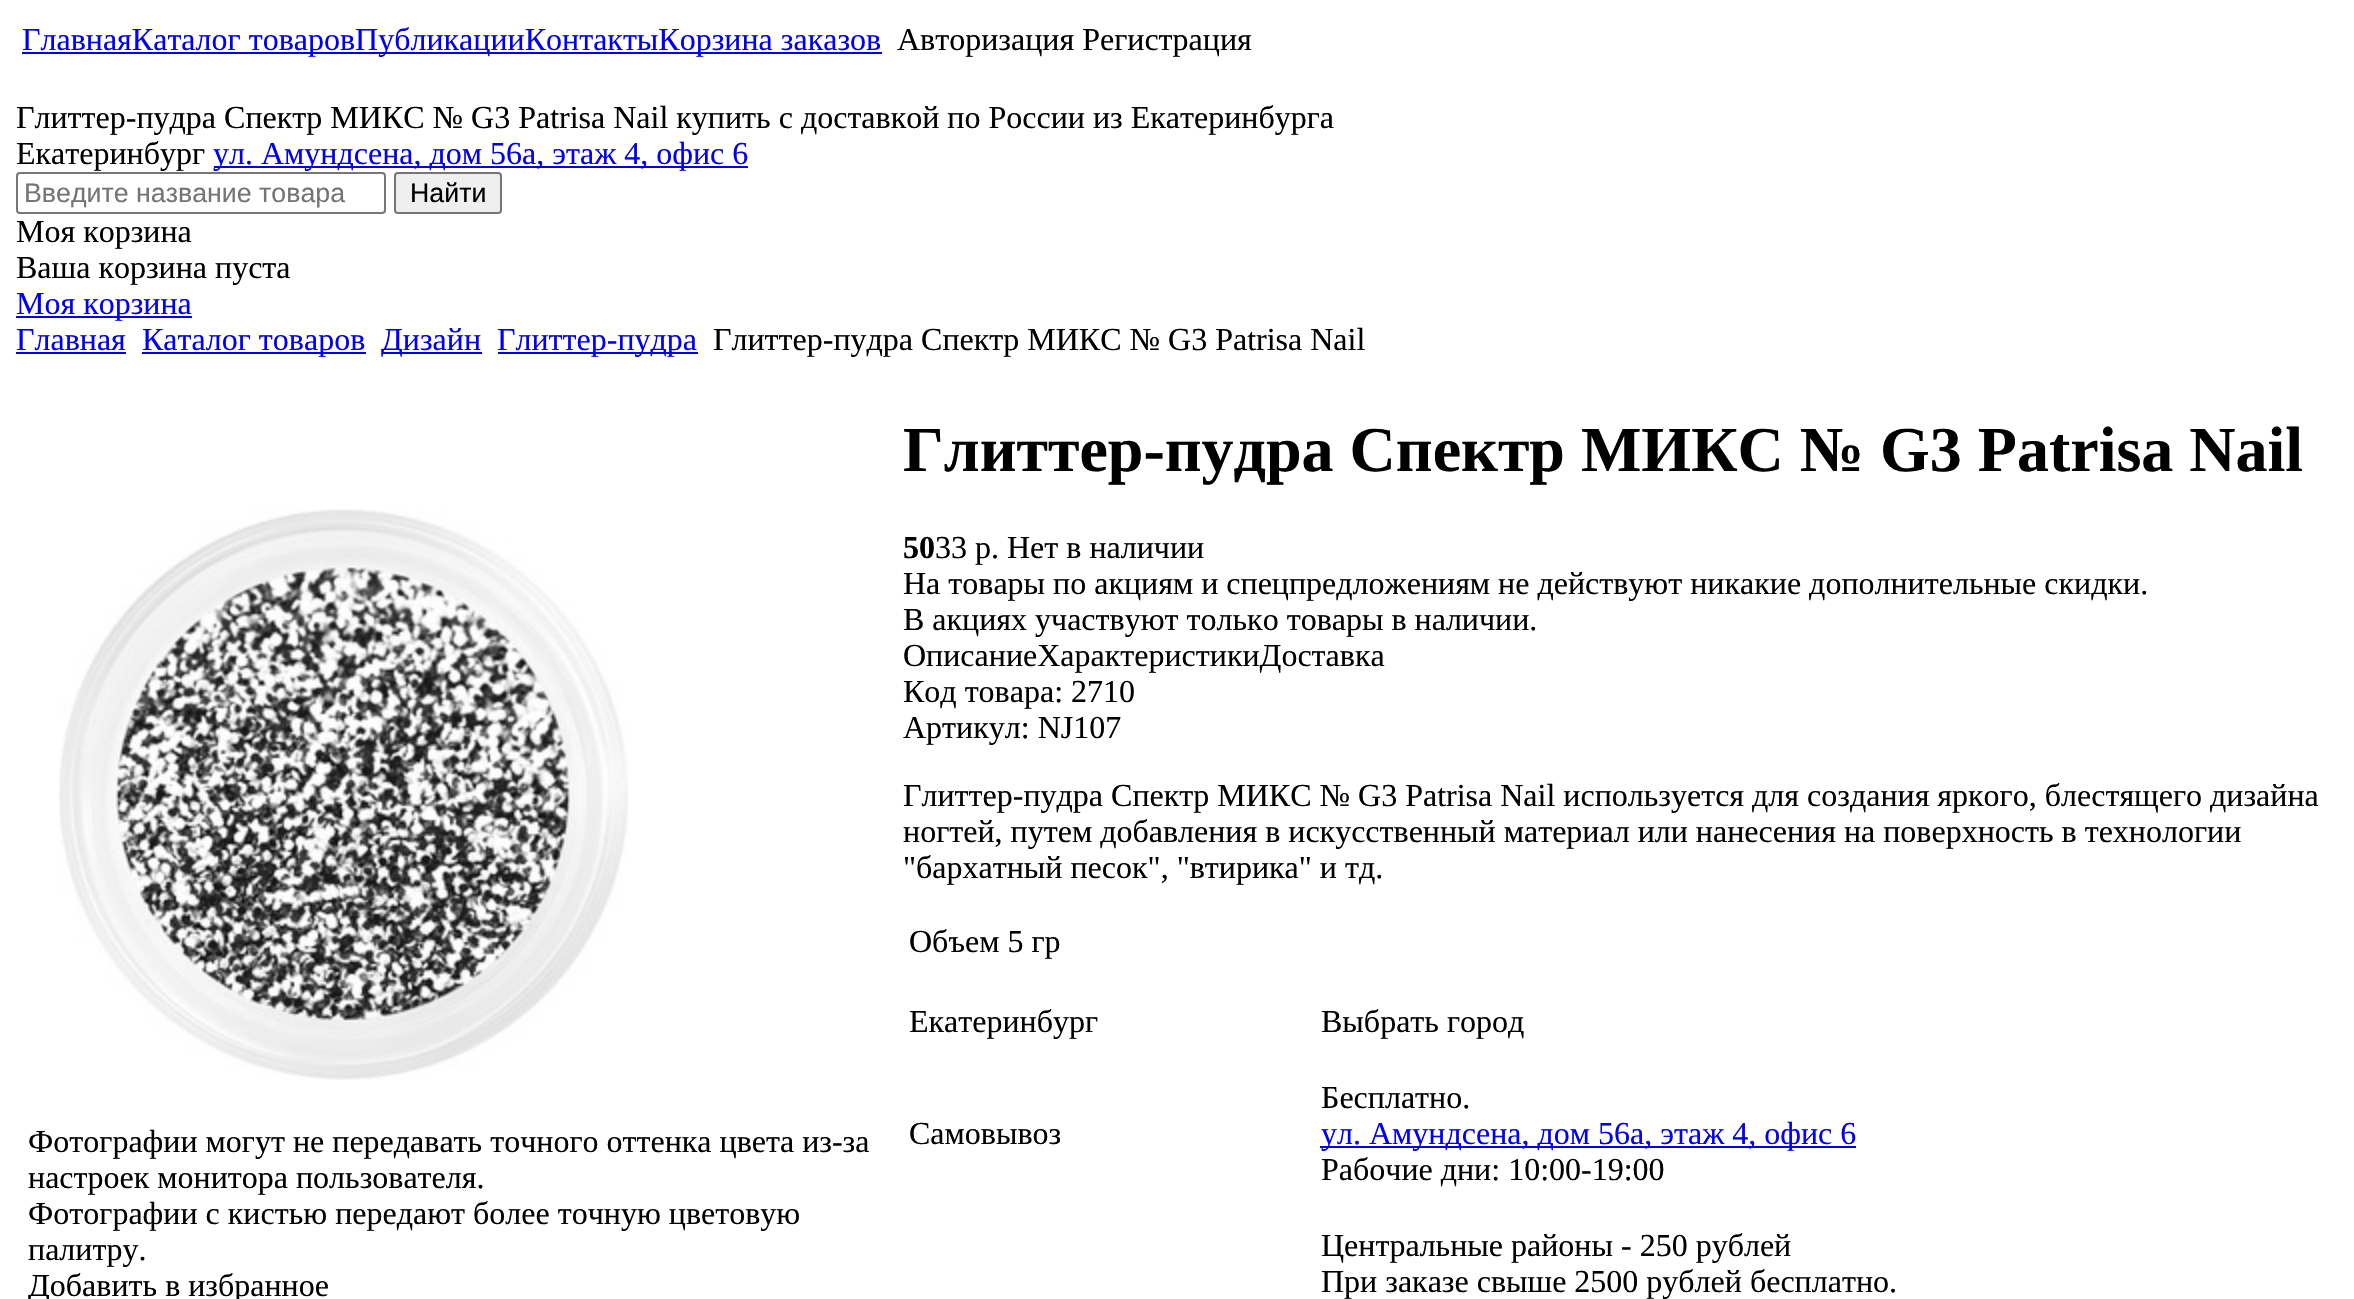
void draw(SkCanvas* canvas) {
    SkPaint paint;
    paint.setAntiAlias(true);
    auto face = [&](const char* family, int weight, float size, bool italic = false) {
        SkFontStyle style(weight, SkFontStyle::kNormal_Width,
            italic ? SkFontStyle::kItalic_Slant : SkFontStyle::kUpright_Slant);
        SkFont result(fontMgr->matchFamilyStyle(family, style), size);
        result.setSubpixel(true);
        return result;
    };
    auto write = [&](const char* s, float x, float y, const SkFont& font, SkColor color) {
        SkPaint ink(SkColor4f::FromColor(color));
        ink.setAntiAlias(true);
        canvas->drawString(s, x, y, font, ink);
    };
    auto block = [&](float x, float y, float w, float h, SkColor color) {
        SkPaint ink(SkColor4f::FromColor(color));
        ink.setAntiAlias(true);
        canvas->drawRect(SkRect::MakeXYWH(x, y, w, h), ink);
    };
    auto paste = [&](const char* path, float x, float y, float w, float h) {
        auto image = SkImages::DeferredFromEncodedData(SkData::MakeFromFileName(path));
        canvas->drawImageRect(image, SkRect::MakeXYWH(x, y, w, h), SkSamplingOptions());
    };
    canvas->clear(SK_ColorWHITE);
    block(22, 52, 860, 2, SkColorSetRGB(0, 0, 238));
    auto kFont1 = face("Liberation Serif", 400, 32);
    write("ГлавнаяКаталог товаровПубликацииКонтактыКорзина заказов", 22, 50, kFont1, SkColorSetRGB(0, 0, 238));
    write("Авторизация Регистрация", 897, 50, kFont1, SK_ColorBLACK);
    write("Глиттер-пудра Спектр МИКС № G3 Patrisa Nail купить с доставкой по России из Екатеринбурга", 16, 128, kFont1, SK_ColorBLACK);
    write("Екатеринбург", 16, 164, kFont1, SK_ColorBLACK);
    block(214, 166, 534, 2, SkColorSetRGB(0, 0, 238));
    write("ул. Амундсена, дом 56а, этаж 4, офис 6", 213, 164, kFont1, SkColorSetRGB(0, 0, 238));
    paint.setStyle(SkPaint::kStroke_Style);
    paint.setStrokeWidth(2);
    paint.setColor(SkColorSetRGB(118, 118, 118));
    canvas->drawRoundRect(SkRect::MakeXYWH(17, 173, 368, 40), 3, 3, paint);
    auto kFont2 = face("Liberation Sans", 400, 26.75f);
    write("Введите название товара", 24, 202, kFont2, SkColorSetRGB(117, 117, 117));
    paint.setStyle(SkPaint::kFill_Style);
    paint.setColor(SkColorSetRGB(239, 239, 239));
    canvas->drawRoundRect(SkRect::MakeXYWH(395, 173, 106, 40), 3, 3, paint);
    paint.setStyle(SkPaint::kStroke_Style);
    paint.setColor(SkColorSetRGB(118, 118, 118));
    canvas->drawRoundRect(SkRect::MakeXYWH(395, 173, 106, 40), 3, 3, paint);
    write("Найти", 410, 202, kFont2, SK_ColorBLACK);
    write("Моя корзина", 16, 242, kFont1, SK_ColorBLACK);
    write("Ваша корзина пуста", 16, 278, kFont1, SK_ColorBLACK);
    block(16, 316, 176, 2, SkColorSetRGB(0, 0, 238));
    write("Моя корзина", 16, 314, kFont1, SkColorSetRGB(0, 0, 238));
    write("Главная", 16, 350, kFont1, SkColorSetRGB(0, 0, 238));
    block(16, 352, 110, 2, SkColorSetRGB(0, 0, 238));
    block(142, 352, 224, 2, SkColorSetRGB(0, 0, 238));
    write("Каталог товаров", 142, 350, kFont1, SkColorSetRGB(0, 0, 238));
    block(382, 352, 100, 2, SkColorSetRGB(0, 0, 238));
    write("Дизайн", 381, 350, kFont1, SkColorSetRGB(0, 0, 238));
    block(498, 352, 200, 2, SkColorSetRGB(0, 0, 238));
    write("Глиттер-пудра", 497, 350, kFont1, SkColorSetRGB(0, 0, 238));
    write("Глиттер-пудра Спектр МИКС № G3 Patrisa Nail", 713, 350, kFont1, SK_ColorBLACK);
    paste("pic1.png", 58, 509, 571, 571);
    write("Фотографии могут не передавать точного оттенка цвета из-за", 28, 1152, kFont1, SK_ColorBLACK);
    write("настроек монитора пользователя.", 28, 1188, kFont1, SK_ColorBLACK);
    write("Фотографии с кистью передают более точную цветовую", 28, 1224, kFont1, SK_ColorBLACK);
    write("палитру.", 28, 1260, kFont1, SK_ColorBLACK);
    write("Добавить в избранное", 28, 1296, kFont1, SK_ColorBLACK);
    auto kFont3 = face("Liberation Serif", 700, 64);
    write("Глиттер-пудра Спектр МИКС № G3 Patrisa Nail", 903, 471, kFont3, SK_ColorBLACK);
    auto kFont4 = face("Liberation Serif", 700, 32);
    write("50", 903, 558, kFont4, SK_ColorBLACK);
    write("33 р. Нет в наличии", 935, 558, kFont1, SK_ColorBLACK);
    write("На товары по акциям и спецпредложениям не действуют никакие дополнительные скидки.", 903, 594, kFont1, SK_ColorBLACK);
    write("В акциях участвуют только товары в наличии.", 903, 630, kFont1, SK_ColorBLACK);
    write("ОписаниеХарактеристикиДоставка", 903, 666, kFont1, SK_ColorBLACK);
    write("Код товара: 2710", 903, 702, kFont1, SK_ColorBLACK);
    write("Артикул: NJ107", 903, 738, kFont1, SK_ColorBLACK);
    write("Глиттер-пудра Спектр МИКС № G3 Patrisa Nail используется для создания яркого, блестящего дизайна", 903, 806, kFont1, SK_ColorBLACK);
    write("ногтей, путем добавления в искусственный материал или нанесения на поверхность в технологии", 903, 842, kFont1, SK_ColorBLACK);
    write("\"бархатный песок\", \"втирика\" и тд.", 903, 878, kFont1, SK_ColorBLACK);
    write("Объем 5 гр", 909, 952, kFont1, SK_ColorBLACK);
    write("Екатеринбург", 909, 1032, kFont1, SK_ColorBLACK);
    write("Выбрать город", 1321, 1032, kFont1, SK_ColorBLACK);
    write("Самовывоз", 909, 1144, kFont1, SK_ColorBLACK);
    write("Бесплатно.", 1321, 1108, kFont1, SK_ColorBLACK);
    block(1320, 1146, 536, 2, SkColorSetRGB(0, 0, 238));
    write("ул. Амундсена, дом 56а, этаж 4, офис 6", 1321, 1144, kFont1, SkColorSetRGB(0, 0, 238));
    write("Рабочие дни: 10:00-19:00", 1321, 1180, kFont1, SK_ColorBLACK);
    write("Центральные районы - 250 рублей", 1321, 1256, kFont1, SK_ColorBLACK);
    write("При заказе свыше 2500 рублей бесплатно.", 1321, 1292, kFont1, SK_ColorBLACK);
}
